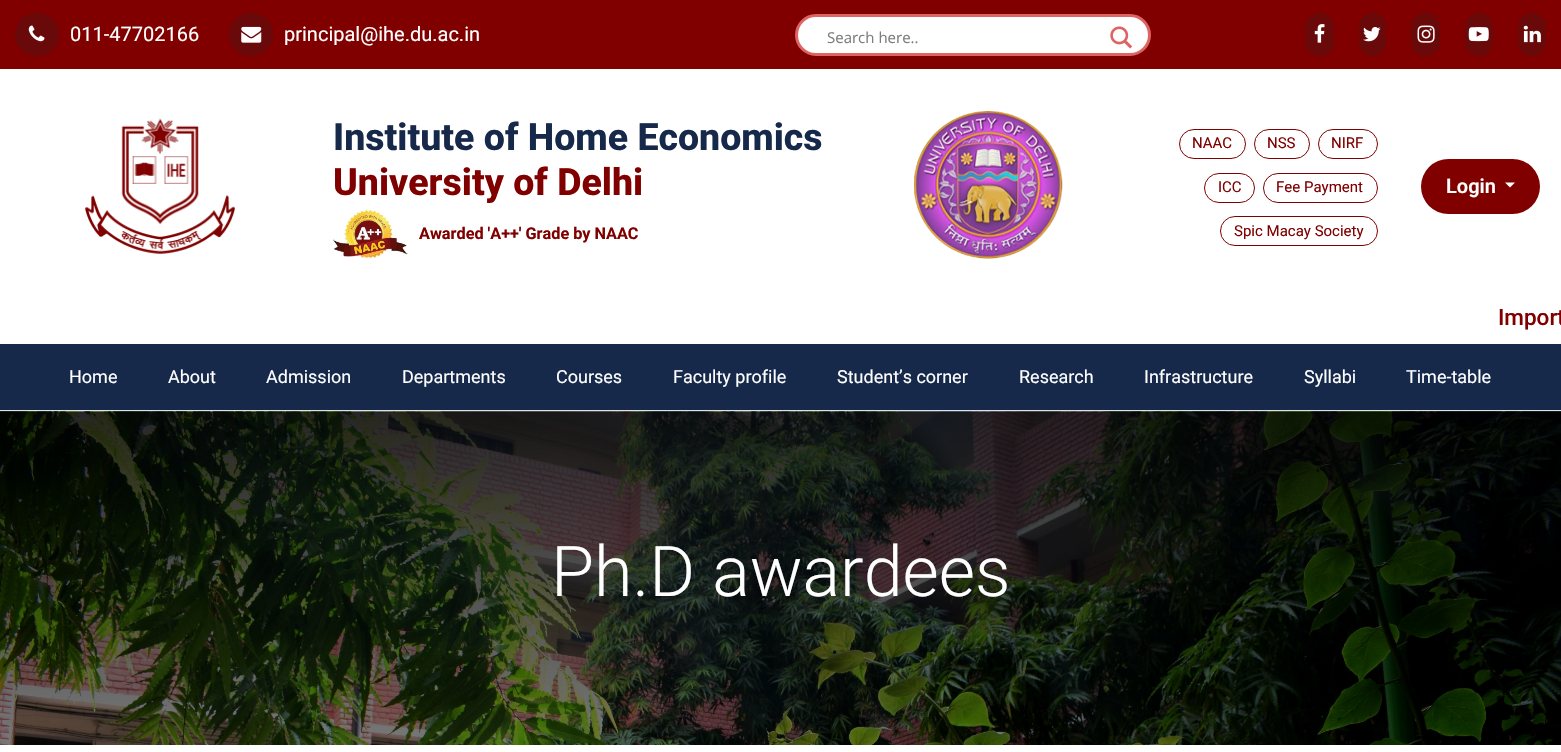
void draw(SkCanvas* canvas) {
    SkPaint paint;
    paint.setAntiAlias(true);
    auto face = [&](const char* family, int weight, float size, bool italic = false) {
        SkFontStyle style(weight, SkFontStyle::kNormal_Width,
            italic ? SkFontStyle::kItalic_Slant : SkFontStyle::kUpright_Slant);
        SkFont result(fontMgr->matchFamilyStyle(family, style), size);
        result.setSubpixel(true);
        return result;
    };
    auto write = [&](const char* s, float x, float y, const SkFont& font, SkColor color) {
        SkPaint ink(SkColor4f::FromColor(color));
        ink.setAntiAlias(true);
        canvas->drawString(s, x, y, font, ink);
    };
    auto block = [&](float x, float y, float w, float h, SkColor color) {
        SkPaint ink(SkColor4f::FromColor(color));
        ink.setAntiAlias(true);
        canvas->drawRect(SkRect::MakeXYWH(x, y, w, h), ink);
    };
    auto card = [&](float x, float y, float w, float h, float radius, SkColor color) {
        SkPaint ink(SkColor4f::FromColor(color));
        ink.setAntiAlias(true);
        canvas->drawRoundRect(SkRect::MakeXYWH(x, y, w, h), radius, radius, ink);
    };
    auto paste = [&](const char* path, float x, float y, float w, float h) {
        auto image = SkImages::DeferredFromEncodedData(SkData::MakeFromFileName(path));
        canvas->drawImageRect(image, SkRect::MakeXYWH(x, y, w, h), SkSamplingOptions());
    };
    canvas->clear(SK_ColorWHITE);
    block(0, 0, 1561, 69, SkColorSetRGB(128, 0, 0));
    card(15, 13, 44, 43, 21.5f, SkColorSetRGB(105, 9, 9));
    paste("pic1.png", 28, 25, 17, 17);
    auto kFont1 = face("Roboto", 400, 20);
    write("011-47702166", 70, 41, kFont1, SK_ColorWHITE);
    card(229, 13, 44, 43, 21.5f, SkColorSetRGB(105, 9, 9));
    paste("pic2.png", 241, 26, 21, 17);
    write("principal@ihe.du.ac.in", 284, 41, kFont1, SK_ColorWHITE);
    paint.setColor(SK_ColorWHITE);
    canvas->drawRoundRect(SkRect::MakeXYWH(796.5f, 15.5f, 353, 39), 19.5f, 19.5f, paint);
    paint.setStyle(SkPaint::kStroke_Style);
    paint.setStrokeWidth(3);
    paint.setColor(SkColorSetRGB(222, 100, 100));
    canvas->drawRoundRect(SkRect::MakeXYWH(796.5f, 15.5f, 353, 39), 19.5f, 19.5f, paint);
    auto kFont2 = face("Open Sans", 400, 15);
    write("Search here..", 827, 43, kFont2, SkColorSetRGB(125, 125, 125));
    paste("pic3.png", 1110, 26, 23, 23);
    card(1305, 13, 29, 43, 14.5f, SkColorSetRGB(105, 9, 9));
    paste("pic4.png", 1314, 24, 11, 19);
    card(1359, 13, 27, 43, 13.5f, SkColorSetRGB(105, 9, 9));
    paste("pic5.png", 1363, 27, 18, 15);
    card(1411, 13, 29, 43, 14.5f, SkColorSetRGB(105, 9, 9));
    paste("pic6.png", 1417, 25, 18, 18);
    card(1465, 13, 28, 43, 14, SkColorSetRGB(105, 9, 9));
    paste("pic7.png", 1468, 27, 21, 15);
    card(1518, 13, 28, 43, 14, SkColorSetRGB(105, 9, 9));
    paste("pic8.png", 1523, 25, 18, 18);
    paste("pic9.png", 85, 118, 150, 136);
    auto kFont3 = face("Roboto", 800, 37.5f);
    write("Institute of Home Economics", 333, 150, kFont3, SkColorSetRGB(22, 41, 74));
    write("University of Delhi", 333, 195, kFont3, SkColorSetRGB(128, 0, 0));
    paste("pic10.png", 333, 210, 75, 48);
    auto kFont4 = face("Roboto", 700, 16.25f);
    write("Awarded 'A++' Grade by NAAC", 419, 239, kFont4, SkColorSetRGB(128, 0, 0));
    paste("pic11.png", 914, 111, 149, 148);
    paint.setStrokeWidth(1);
    paint.setColor(SkColorSetRGB(128, 0, 0));
    canvas->drawRoundRect(SkRect::MakeXYWH(1179.5f, 129.5f, 66, 29), 14.5f, 14.5f, paint);
    auto kFont5 = face("Roboto", 400, 15);
    write("NAAC", 1192, 148, kFont5, SkColorSetRGB(128, 0, 0));
    canvas->drawRoundRect(SkRect::MakeXYWH(1254.5f, 129.5f, 55, 29), 14.5f, 14.5f, paint);
    write("NSS", 1267, 148, kFont5, SkColorSetRGB(128, 0, 0));
    canvas->drawRoundRect(SkRect::MakeXYWH(1318.5f, 129.5f, 59, 29), 14.5f, 14.5f, paint);
    write("NIRF", 1331, 148, kFont5, SkColorSetRGB(128, 0, 0));
    canvas->drawRoundRect(SkRect::MakeXYWH(1204.5f, 173.5f, 50, 29), 14.5f, 14.5f, paint);
    write("ICC", 1218, 192, kFont5, SkColorSetRGB(128, 0, 0));
    canvas->drawRoundRect(SkRect::MakeXYWH(1263.5f, 173.5f, 114, 29), 14.5f, 14.5f, paint);
    write("Fee Payment", 1276, 192, kFont5, SkColorSetRGB(128, 0, 0));
    canvas->drawRoundRect(SkRect::MakeXYWH(1220.5f, 216.5f, 157, 29), 14.5f, 14.5f, paint);
    write("Spic Macay Society", 1234, 236, kFont5, SkColorSetRGB(128, 0, 0));
    card(1421, 159, 119, 55, 27.5f, SkColorSetRGB(128, 0, 0));
    auto kFont6 = face("Roboto", 600, 20);
    write("Login", 1446, 193, kFont6, SK_ColorWHITE);
    paint.setStyle(SkPaint::kFill_Style);
    paint.setColor(SK_ColorWHITE);
    canvas->drawPath(SkPathBuilder().moveTo(1505, 182.5f).lineTo(1515, 182.5f).lineTo(1510, 187.5f).close().detach(), paint);
    auto kFont7 = face("Roboto", 500, 22.5f);
    write("Import", 1498, 325, kFont7, SkColorSetRGB(128, 0, 0));
    block(0, 344, 1561, 66, SkColorSetRGB(22, 41, 74));
    block(0, 410, 1561, 1, SkColorSetRGB(222, 226, 230));
    auto kFont8 = face("Roboto", 400, 18);
    write("Home", 69, 383, kFont8, SK_ColorWHITE);
    write("About", 168, 383, kFont8, SK_ColorWHITE);
    write("Admission", 266, 383, kFont8, SK_ColorWHITE);
    write("Departments", 402, 383, kFont8, SK_ColorWHITE);
    write("Courses", 556, 383, kFont8, SK_ColorWHITE);
    write("Faculty profile", 673, 383, kFont8, SK_ColorWHITE);
    write("Student’s corner", 837, 383, kFont8, SK_ColorWHITE);
    write("Research", 1019, 383, kFont8, SK_ColorWHITE);
    write("Infrastructure", 1144, 383, kFont8, SK_ColorWHITE);
    write("Syllabi", 1304, 383, kFont8, SK_ColorWHITE);
    write("Time-table", 1406, 383, kFont8, SK_ColorWHITE);
    paste("pic12.png", 0, 411, 1561, 334);
    auto kFont9 = face("Roboto", 300, 70);
    write("Ph.D awardees", 551, 596, kFont9, SK_ColorWHITE);
}
